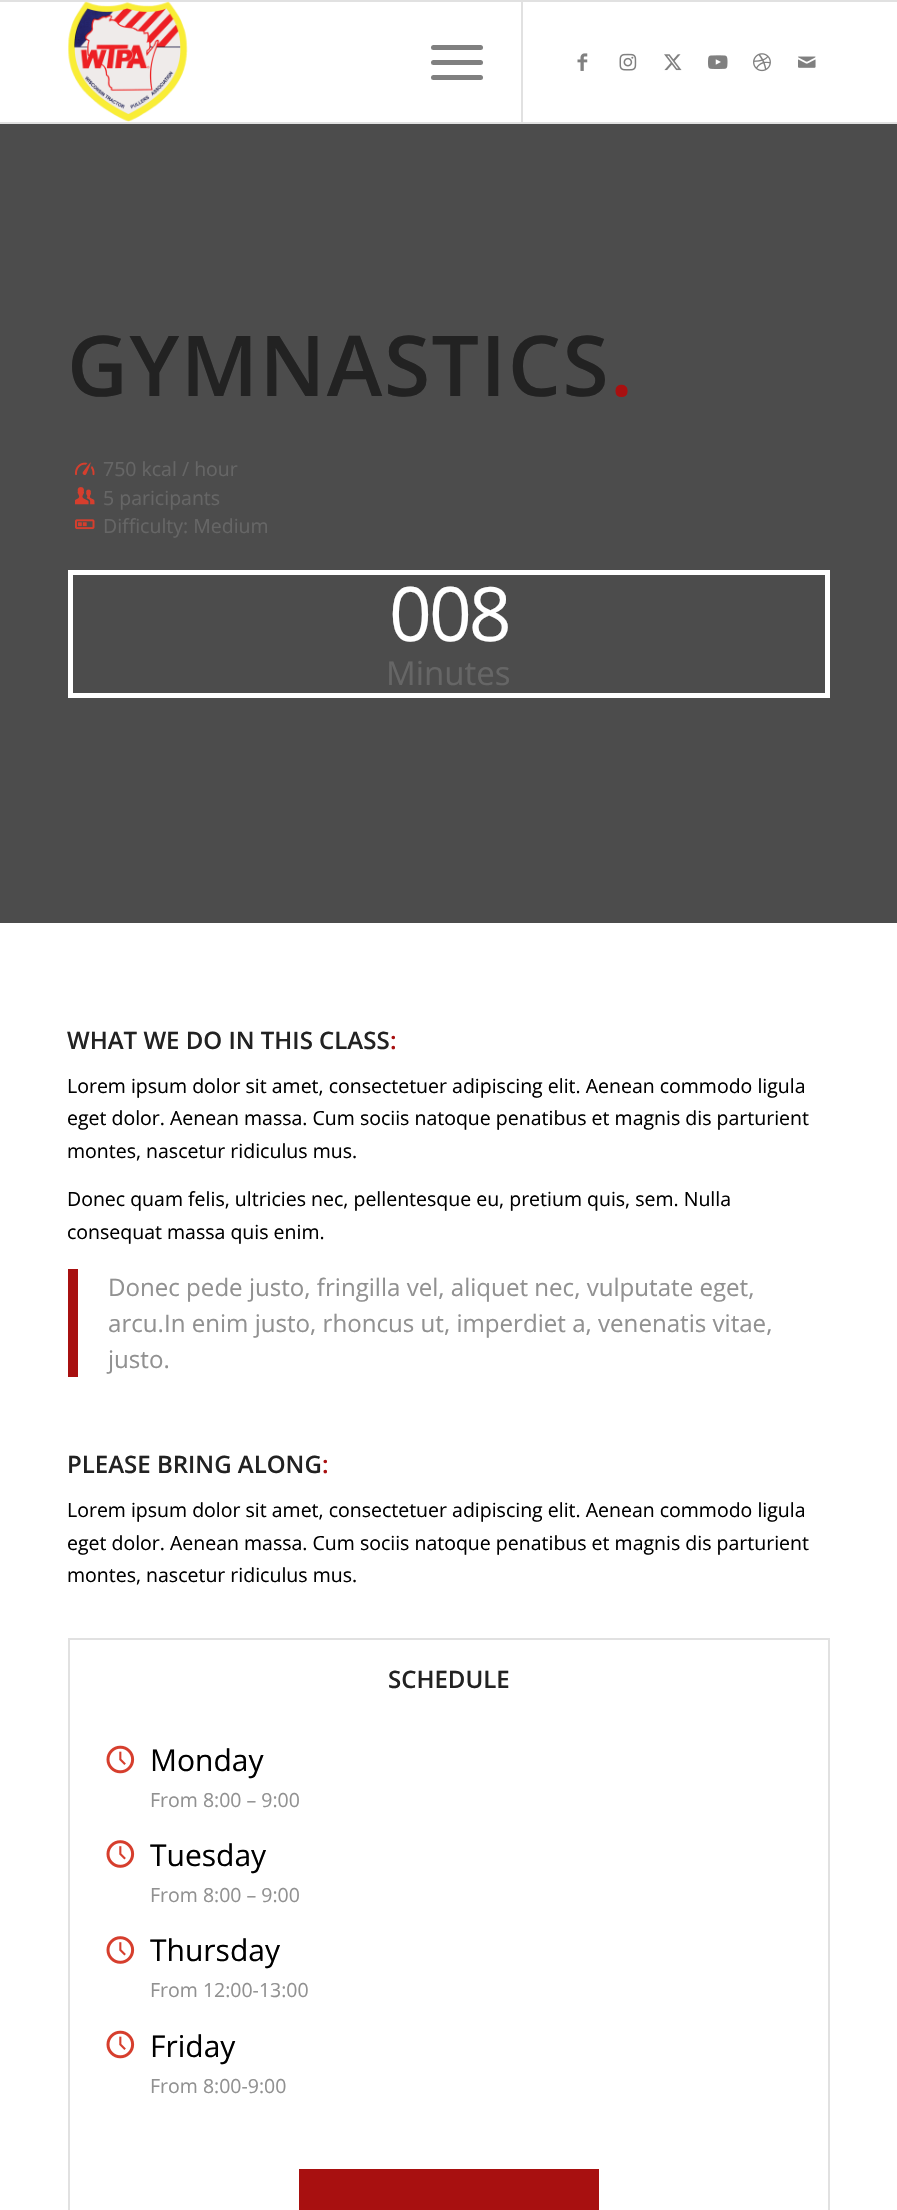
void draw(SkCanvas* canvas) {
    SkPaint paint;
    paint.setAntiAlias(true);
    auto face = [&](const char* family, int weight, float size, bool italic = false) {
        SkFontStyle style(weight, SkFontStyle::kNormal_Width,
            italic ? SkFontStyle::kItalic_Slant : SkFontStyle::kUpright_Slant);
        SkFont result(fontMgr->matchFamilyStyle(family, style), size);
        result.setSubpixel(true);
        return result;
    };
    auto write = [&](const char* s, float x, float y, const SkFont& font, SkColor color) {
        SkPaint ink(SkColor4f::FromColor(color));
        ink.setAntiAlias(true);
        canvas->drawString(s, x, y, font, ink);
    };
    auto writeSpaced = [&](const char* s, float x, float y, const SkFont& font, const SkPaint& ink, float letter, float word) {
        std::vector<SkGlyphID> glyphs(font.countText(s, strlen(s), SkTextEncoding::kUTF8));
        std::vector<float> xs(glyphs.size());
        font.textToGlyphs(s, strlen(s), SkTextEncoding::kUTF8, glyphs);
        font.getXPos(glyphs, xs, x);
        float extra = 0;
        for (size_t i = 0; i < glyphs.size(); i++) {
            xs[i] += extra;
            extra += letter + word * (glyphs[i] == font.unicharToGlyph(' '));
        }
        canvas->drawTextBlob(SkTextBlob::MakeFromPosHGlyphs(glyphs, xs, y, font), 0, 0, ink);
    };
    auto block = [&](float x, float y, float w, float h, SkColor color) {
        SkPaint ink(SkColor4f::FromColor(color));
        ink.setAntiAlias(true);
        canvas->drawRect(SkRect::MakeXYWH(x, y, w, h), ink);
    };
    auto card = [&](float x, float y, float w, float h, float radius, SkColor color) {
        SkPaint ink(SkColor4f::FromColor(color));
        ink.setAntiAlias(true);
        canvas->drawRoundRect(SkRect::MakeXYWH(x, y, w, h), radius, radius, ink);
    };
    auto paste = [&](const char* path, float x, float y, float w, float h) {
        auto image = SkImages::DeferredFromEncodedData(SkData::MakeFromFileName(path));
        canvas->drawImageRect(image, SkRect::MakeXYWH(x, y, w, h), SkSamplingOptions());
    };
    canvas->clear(SK_ColorWHITE);
    block(0, 0, 897, 2, SkColorSetRGB(225, 225, 225));
    block(0, 122, 897, 2, SkColorSetRGB(225, 225, 225));
    paste("pic1.png", 68, 1, 120, 121);
    block(521, 2, 2, 120, SkColorSetRGB(225, 225, 225));
    card(431, 60, 52, 5, 2.5f, SkColorSetRGB(128, 128, 128));
    card(431, 45, 52, 5, 2.5f, SkColorSetRGB(128, 128, 128));
    card(431, 75, 52, 5, 2.5f, SkColorSetRGB(128, 128, 128));
    paste("pic2.png", 577, 53, 11, 18);
    paste("pic3.png", 619, 53, 18, 18);
    paste("pic4.png", 664, 54, 18, 17);
    paste("pic5.png", 708, 55, 20, 14);
    paste("pic6.png", 753, 53, 18, 19);
    paste("pic7.png", 798, 56, 18, 12);
    block(0, 124, 897, 799, SkColorSetRGB(76, 76, 76));
    auto kFont1 = face("Open Sans", 600, 84);
    paint.setColor(SkColorSetRGB(34, 34, 34));
    writeSpaced("GYMNASTICS", 67, 396, kFont1, paint, 1.5f, 0);
    paint.setColor(SkColorSetRGB(168, 16, 16));
    writeSpaced(".", 610, 396, kFont1, paint, 1.5f, 0);
    paste("pic8.png", 75, 462, 20, 14);
    auto kFont2 = face("Open Sans", 400, 19.5f);
    write("750 kcal / hour", 103, 476, kFont2, SkColorSetRGB(102, 102, 102));
    paste("pic9.png", 75, 487, 20, 18);
    write("5 paricipants", 103, 505, kFont2, SkColorSetRGB(102, 102, 102));
    paste("pic10.png", 75, 519, 20, 11);
    write("Difficulty: Medium", 103, 533, kFont2, SkColorSetRGB(102, 102, 102));
    paint.setStyle(SkPaint::kStroke_Style);
    paint.setStrokeWidth(5);
    paint.setColor(SK_ColorWHITE);
    canvas->drawRect(SkRect::MakeXYWH(70.5f, 572.5f, 757, 123), paint);
    auto kFont3 = face("Open Sans", 400, 75);
    paint.setStyle(SkPaint::kFill_Style);
    writeSpaced("008", 389, 641, kFont3, paint, -3, 0);
    auto kFont4 = face("Open Sans", 400, 33);
    write("Minutes", 386, 685, kFont4, SkColorSetRGB(102, 102, 102));
    auto kFont5 = face("Open Sans", 600, 24);
    write("WHAT WE DO IN THIS CLASS", 67, 1049, kFont5, SkColorSetRGB(34, 34, 34));
    write(":", 390, 1049, kFont5, SkColorSetRGB(168, 16, 16));
    write("Lorem ipsum dolor sit amet, consectetuer adipiscing elit. Aenean commodo ligula", 67, 1093, kFont2, SK_ColorBLACK);
    write("eget dolor. Aenean massa. Cum sociis natoque penatibus et magnis dis parturient", 67, 1125, kFont2, SK_ColorBLACK);
    write("montes, nascetur ridiculus mus.", 67, 1158, kFont2, SK_ColorBLACK);
    write("Donec quam felis, ultricies nec, pellentesque eu, pretium quis, sem. Nulla", 67, 1206, kFont2, SK_ColorBLACK);
    write("consequat massa quis enim.", 67, 1239, kFont2, SK_ColorBLACK);
    block(68, 1269, 10, 108, SkColorSetRGB(168, 16, 16));
    auto kFont6 = face("Open Sans", 400, 24.1f);
    write("Donec pede justo, fringilla vel, aliquet nec, vulputate eget,", 108, 1296, kFont6, SkColorSetRGB(145, 145, 145));
    write("arcu.In enim justo, rhoncus ut, imperdiet a, venenatis vitae,", 108, 1332, kFont6, SkColorSetRGB(145, 145, 145));
    write("justo.", 108, 1368, kFont6, SkColorSetRGB(145, 145, 145));
    write("PLEASE BRING ALONG", 67, 1473, kFont5, SkColorSetRGB(34, 34, 34));
    write(":", 322, 1473, kFont5, SkColorSetRGB(168, 16, 16));
    write("Lorem ipsum dolor sit amet, consectetuer adipiscing elit. Aenean commodo ligula", 67, 1517, kFont2, SK_ColorBLACK);
    write("eget dolor. Aenean massa. Cum sociis natoque penatibus et magnis dis parturient", 67, 1550, kFont2, SK_ColorBLACK);
    write("montes, nascetur ridiculus mus.", 67, 1582, kFont2, SK_ColorBLACK);
    paint.setStyle(SkPaint::kStroke_Style);
    paint.setStrokeWidth(2);
    paint.setColor(SkColorSetRGB(225, 225, 225));
    canvas->drawRect(SkRect::MakeXYWH(69, 1639, 760, 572), paint);
    write("SCHEDULE", 388, 1688, kFont5, SkColorSetRGB(34, 34, 34));
    paste("pic11.png", 106, 1745, 29, 29);
    auto kFont7 = face("Open Sans", 400, 30);
    write("Monday", 150, 1771, kFont7, SK_ColorBLACK);
    write("From 8:00 – 9:00", 150, 1807, kFont2, SkColorSetRGB(145, 145, 145));
    paste("pic12.png", 106, 1840, 29, 28);
    write("Tuesday", 150, 1866, kFont7, SK_ColorBLACK);
    write("From 8:00 – 9:00", 150, 1902, kFont2, SkColorSetRGB(145, 145, 145));
    paste("pic12.png", 106, 1936, 29, 28);
    write("Thursday", 150, 1961, kFont7, SK_ColorBLACK);
    write("From 12:00-13:00", 150, 1997, kFont2, SkColorSetRGB(145, 145, 145));
    paste("pic11.png", 106, 2030, 29, 29);
    write("Friday", 150, 2057, kFont7, SK_ColorBLACK);
    write("From 8:00-9:00", 150, 2093, kFont2, SkColorSetRGB(145, 145, 145));
    block(299, 2169, 300, 41, SkColorSetRGB(168, 16, 16));
}
